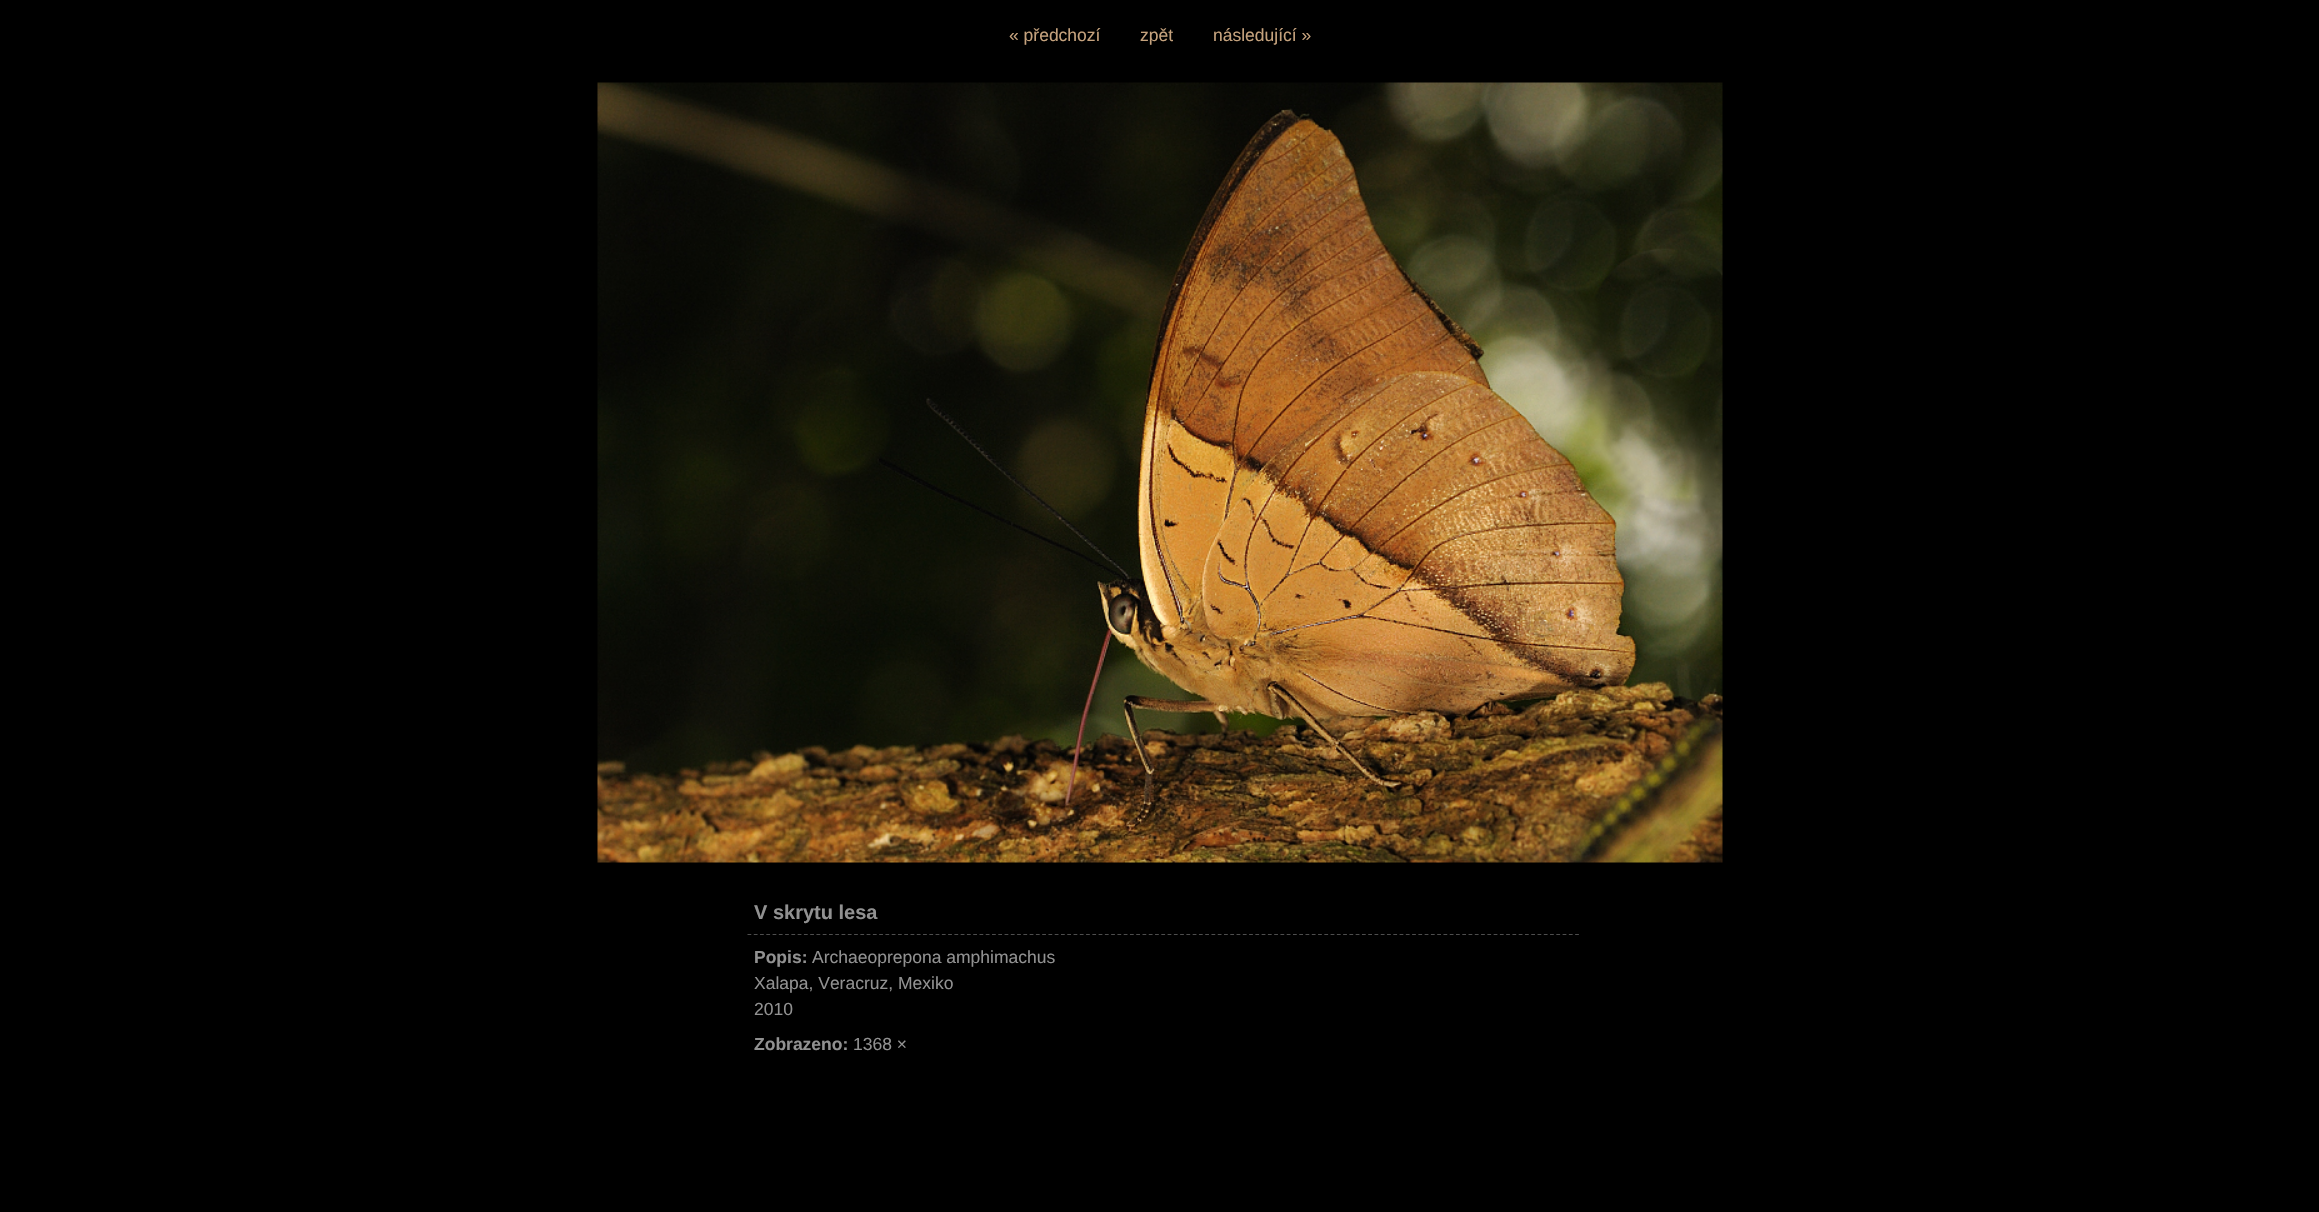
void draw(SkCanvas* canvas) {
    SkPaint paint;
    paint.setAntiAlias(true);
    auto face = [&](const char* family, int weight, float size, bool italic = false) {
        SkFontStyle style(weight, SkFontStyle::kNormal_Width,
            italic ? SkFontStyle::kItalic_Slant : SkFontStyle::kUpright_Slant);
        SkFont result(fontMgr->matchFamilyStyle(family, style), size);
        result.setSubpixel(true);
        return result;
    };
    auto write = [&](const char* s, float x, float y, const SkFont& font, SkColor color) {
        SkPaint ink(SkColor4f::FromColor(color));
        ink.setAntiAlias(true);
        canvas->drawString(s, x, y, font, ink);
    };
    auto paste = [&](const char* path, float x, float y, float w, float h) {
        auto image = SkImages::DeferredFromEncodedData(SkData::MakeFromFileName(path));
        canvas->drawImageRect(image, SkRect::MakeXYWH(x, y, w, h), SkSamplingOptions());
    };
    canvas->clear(SK_ColorBLACK);
    auto kFont1 = face("Liberation Sans", 400, 17.5f);
    write("« předchozí", 1009, 41, kFont1, SkColorSetRGB(197, 162, 125));
    write("zpět", 1140, 41, kFont1, SkColorSetRGB(197, 162, 125));
    write("následující »", 1213, 41, kFont1, SkColorSetRGB(197, 162, 125));
    paste("pic1.png", 597, 82, 1126, 781);
    paint.setStyle(SkPaint::kStroke_Style);
    paint.setStrokeWidth(1.2f);
    paint.setColor(SkColorSetRGB(78, 78, 78));
    paint.setPathEffect(SkDashPathEffect::Make({{3.75f, 2.52f}}, 0));
    canvas->drawPath(SkPathBuilder().moveTo(747.5f, 934.5f).lineTo(1579, 934.5f).detach(), paint);
    paint.setPathEffect(nullptr);
    auto kFont2 = face("Liberation Sans", 700, 20);
    write("V skrytu lesa", 754, 919, kFont2, SkColorSetRGB(145, 145, 145));
    auto kFont3 = face("Liberation Sans", 700, 17.5f);
    write("Popis:", 754, 963, kFont3, SkColorSetRGB(145, 145, 145));
    write("Archaeoprepona amphimachus", 812, 963, kFont1, SkColorSetRGB(145, 145, 145));
    write("Xalapa, Veracruz, Mexiko", 754, 989, kFont1, SkColorSetRGB(145, 145, 145));
    write("2010", 754, 1015, kFont1, SkColorSetRGB(145, 145, 145));
    write("Zobrazeno:", 754, 1050, kFont3, SkColorSetRGB(145, 145, 145));
    write("1368 ×", 853, 1050, kFont1, SkColorSetRGB(145, 145, 145));
}
